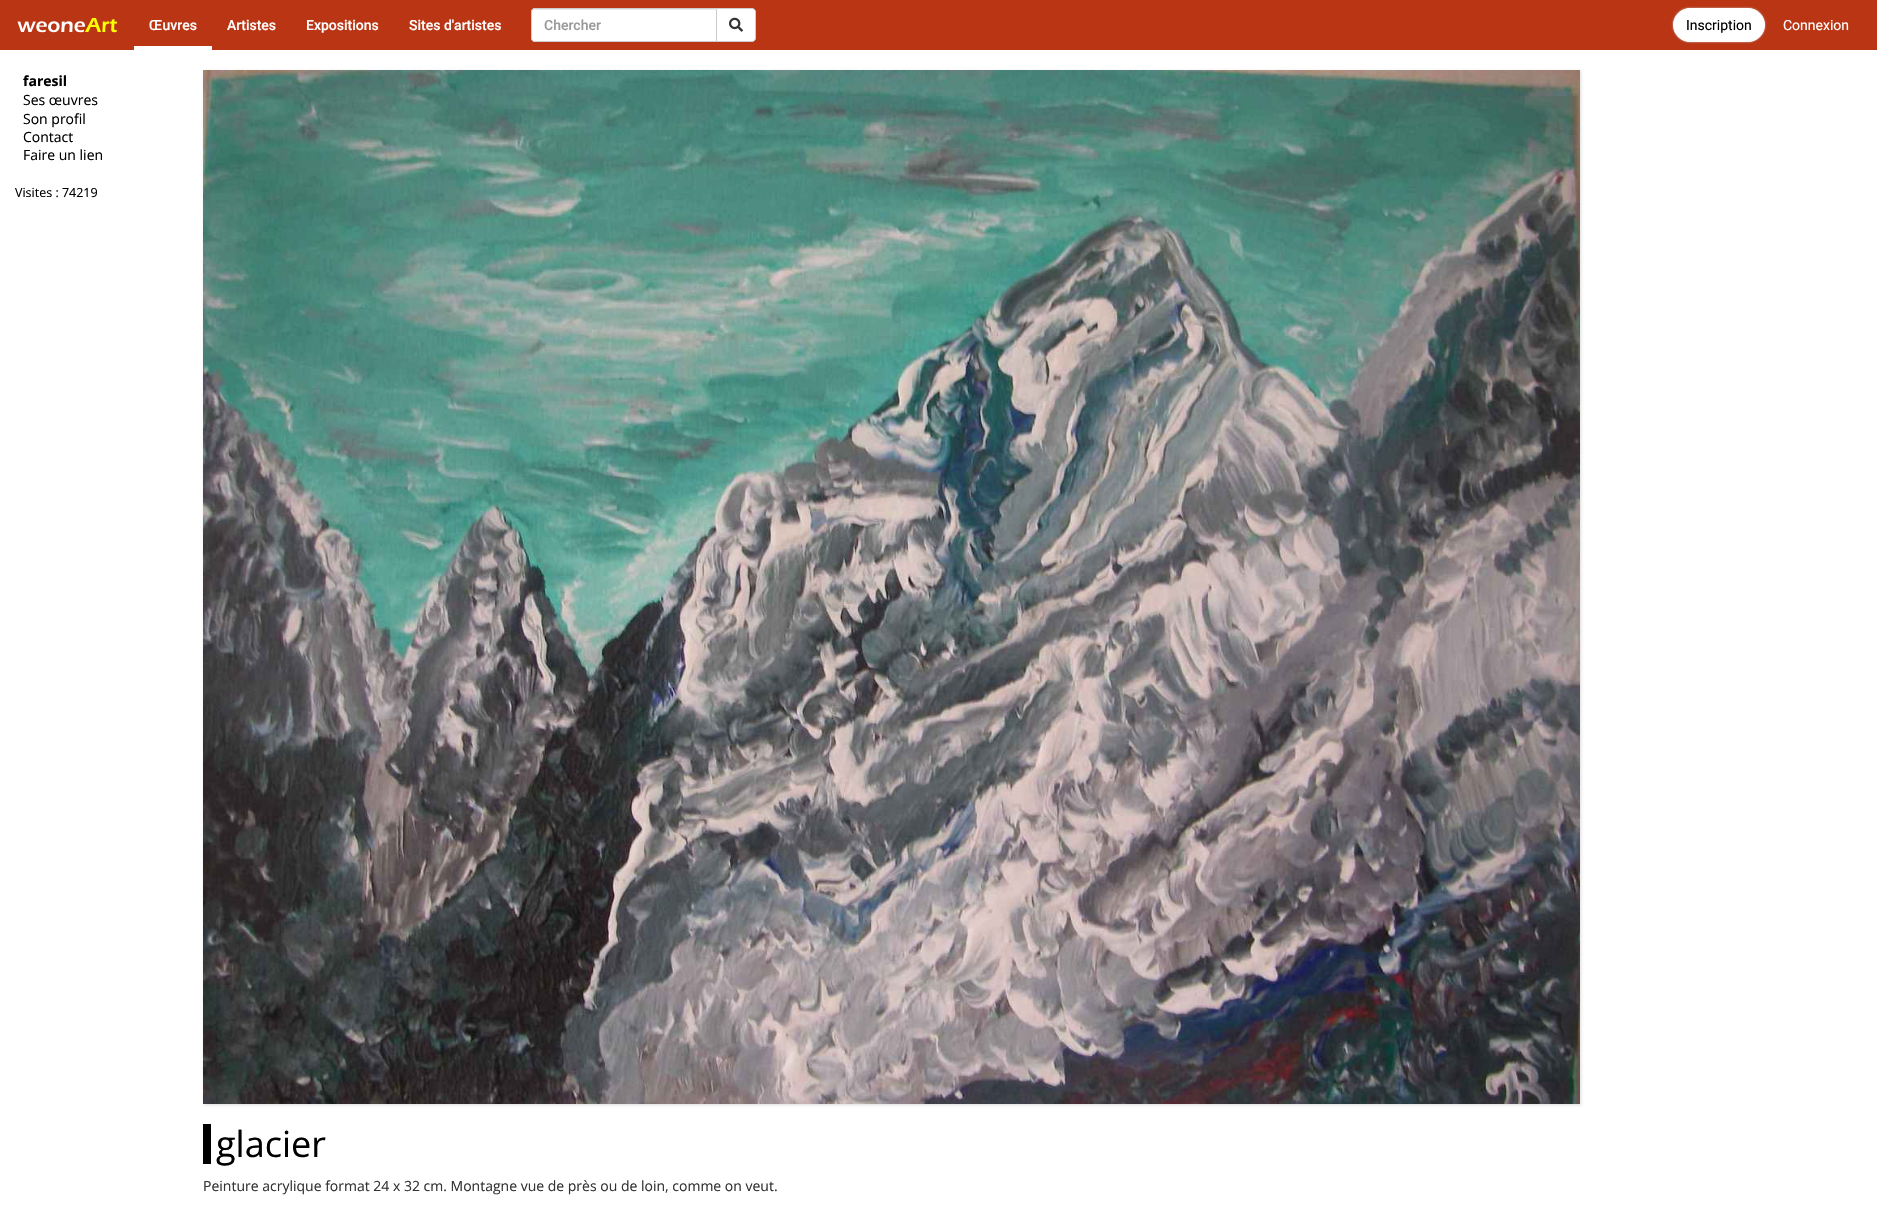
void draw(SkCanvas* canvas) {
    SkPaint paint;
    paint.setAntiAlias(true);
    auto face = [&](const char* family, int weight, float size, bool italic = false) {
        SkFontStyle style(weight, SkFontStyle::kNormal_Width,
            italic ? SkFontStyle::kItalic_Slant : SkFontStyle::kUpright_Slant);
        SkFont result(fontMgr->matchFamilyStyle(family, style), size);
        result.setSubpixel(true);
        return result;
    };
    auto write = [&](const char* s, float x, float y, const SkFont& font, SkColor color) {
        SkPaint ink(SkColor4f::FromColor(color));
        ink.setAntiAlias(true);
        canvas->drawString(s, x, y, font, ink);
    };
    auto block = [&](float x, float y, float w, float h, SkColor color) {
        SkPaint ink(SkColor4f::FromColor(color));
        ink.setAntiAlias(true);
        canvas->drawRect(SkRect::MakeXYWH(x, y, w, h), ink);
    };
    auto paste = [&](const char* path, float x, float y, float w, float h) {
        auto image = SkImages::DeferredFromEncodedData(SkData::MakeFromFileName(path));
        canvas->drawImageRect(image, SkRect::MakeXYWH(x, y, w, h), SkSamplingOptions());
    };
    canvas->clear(SK_ColorWHITE);
    block(0, 0, 1877, 50, SkColorSetRGB(185, 53, 19));
    paste("pic1.png", 17, 18, 100, 15);
    auto kFont1 = face("Roboto", 500, 14);
    write("Œuvres", 149, 30, kFont1, SK_ColorWHITE);
    block(134, 46, 78, 4, SK_ColorWHITE);
    write("Artistes", 227, 30, kFont1, SK_ColorWHITE);
    write("Expositions", 306, 30, kFont1, SK_ColorWHITE);
    write("Sites d'artistes", 409, 30, kFont1, SK_ColorWHITE);
    paint.setColor(SK_ColorWHITE);
    canvas->drawPath(SkPathBuilder().moveTo(535, 8).lineTo(717, 8).lineTo(717, 42).lineTo(535, 42).cubicTo(533, 42, 531, 40, 531, 38).lineTo(531, 12).cubicTo(531, 10, 533, 8, 535, 8).close().detach(), paint);
    paint.setColor(SkColorSetRGB(236, 236, 236));
    canvas->drawPath(SkPathBuilder().moveTo(535, 10).lineTo(716, 10).lineTo(716, 9).lineTo(534, 9).cubicTo(532, 10, 532, 11, 532, 13).cubicTo(532, 11, 533, 10, 535, 10).close().detach(), paint);
    paint.setStyle(SkPaint::kStroke_Style);
    paint.setStrokeWidth(1);
    paint.setColor(SkColorSetRGB(204, 204, 204));
    canvas->drawPath(SkPathBuilder().moveTo(535, 8.5f).lineTo(716.5f, 8.5f).lineTo(716.5f, 41.5f).lineTo(535, 41.5f).cubicTo(533, 41.5f, 531.5f, 40, 531.5f, 38).lineTo(531.5f, 12).cubicTo(531.5f, 10, 533, 8.5f, 535, 8.5f).close().detach(), paint);
    write("Chercher", 544, 30, kFont1, SkColorSetRGB(153, 153, 153));
    paint.setStyle(SkPaint::kFill_Style);
    paint.setColor(SK_ColorWHITE);
    canvas->drawPath(SkPathBuilder().moveTo(716.5f, 8.5f).lineTo(752, 8.5f).cubicTo(754, 8.5f, 755.5f, 10, 755.5f, 12).lineTo(755.5f, 38).cubicTo(755.5f, 40, 754, 41.5f, 752, 41.5f).lineTo(716.5f, 41.5f).close().detach(), paint);
    paint.setStyle(SkPaint::kStroke_Style);
    paint.setColor(SkColorSetRGB(204, 204, 204));
    canvas->drawPath(SkPathBuilder().moveTo(716.5f, 8.5f).lineTo(752, 8.5f).cubicTo(754, 8.5f, 755.5f, 10, 755.5f, 12).lineTo(755.5f, 38).cubicTo(755.5f, 40, 754, 41.5f, 752, 41.5f).lineTo(716.5f, 41.5f).close().detach(), paint);
    paste("pic2.png", 729, 17, 14, 15);
    paint.setStyle(SkPaint::kFill_Style);
    paint.setMaskFilter(SkMaskFilter::MakeBlur(kNormal_SkBlurStyle, 1));
    canvas->drawRoundRect(SkRect::MakeXYWH(1673, 8, 92, 34), 17, 17, paint);
    paint.setMaskFilter(nullptr);
    paint.setColor(SK_ColorWHITE);
    canvas->drawRoundRect(SkRect::MakeXYWH(1673.5f, 8.5f, 91, 33), 16.5f, 16.5f, paint);
    paint.setStyle(SkPaint::kStroke_Style);
    canvas->drawRoundRect(SkRect::MakeXYWH(1673.5f, 8.5f, 91, 33), 16.5f, 16.5f, paint);
    auto kFont2 = face("Roboto", 400, 14);
    write("Inscription", 1686, 30, kFont2, SK_ColorBLACK);
    write("Connexion", 1783, 30, kFont2, SK_ColorWHITE);
    auto kFont3 = face("Open Sans", 700, 14);
    write("faresil", 23, 86, kFont3, SK_ColorBLACK);
    auto kFont4 = face("Open Sans", 400, 14);
    write("Ses œuvres", 23, 105, kFont4, SK_ColorBLACK);
    write("Son profil", 23, 124, kFont4, SK_ColorBLACK);
    write("Contact", 23, 142, kFont4, SK_ColorBLACK);
    write("Faire un lien", 23, 160, kFont4, SK_ColorBLACK);
    auto kFont5 = face("Open Sans", 400, 12.5f);
    write("Visites : 74219", 15, 197, kFont5, SK_ColorBLACK);
    paint.setStyle(SkPaint::kFill_Style);
    paint.setColor(SkColorSetRGB(221, 221, 221));
    paint.setMaskFilter(SkMaskFilter::MakeBlur(kNormal_SkBlurStyle, 1.5f));
    canvas->drawRect(SkRect::MakeXYWH(204, 71, 1377, 1034), paint);
    paint.setMaskFilter(nullptr);
    paste("pic3.png", 203, 70, 1377, 1034);
    block(203, 1124, 8, 40, SK_ColorBLACK);
    auto kFont6 = face("Open Sans", 400, 36);
    write("glacier", 216, 1157, kFont6, SK_ColorBLACK);
    write("Peinture acrylique format 24 x 32 cm. Montagne vue de près ou de loin, comme on veut.", 203, 1191, kFont4, SkColorSetRGB(51, 51, 51));
}
